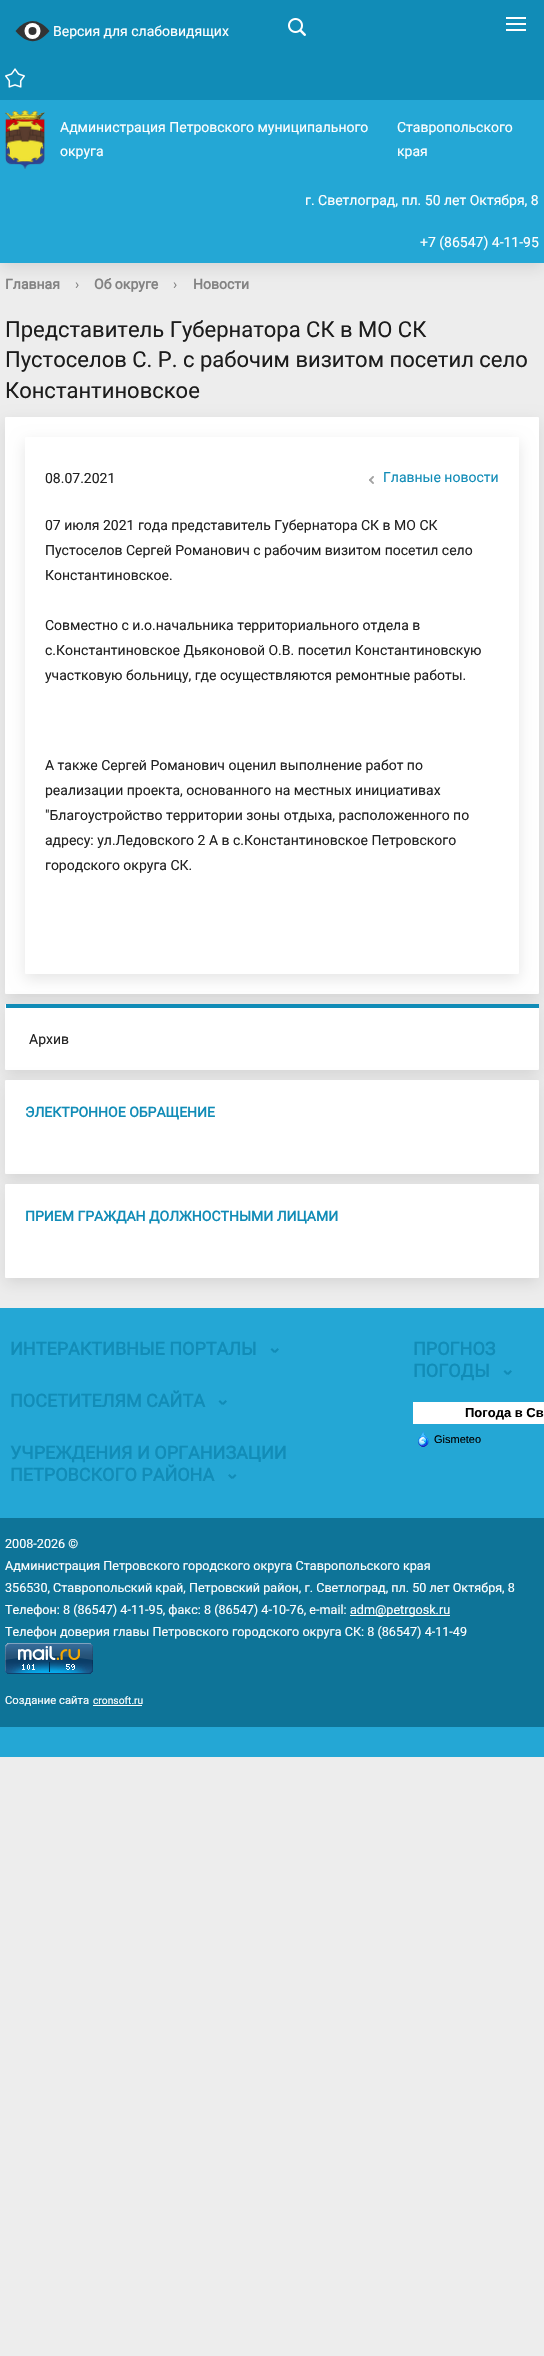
void draw(SkCanvas* canvas) {
    SkPaint paint;
    paint.setAntiAlias(true);
    auto face = [&](const char* family, int weight, float size, bool italic = false) {
        SkFontStyle style(weight, SkFontStyle::kNormal_Width,
            italic ? SkFontStyle::kItalic_Slant : SkFontStyle::kUpright_Slant);
        SkFont result(fontMgr->matchFamilyStyle(family, style), size);
        result.setSubpixel(true);
        return result;
    };
    auto write = [&](const char* s, float x, float y, const SkFont& font, SkColor color) {
        SkPaint ink(SkColor4f::FromColor(color));
        ink.setAntiAlias(true);
        canvas->drawString(s, x, y, font, ink);
    };
    auto block = [&](float x, float y, float w, float h, SkColor color) {
        SkPaint ink(SkColor4f::FromColor(color));
        ink.setAntiAlias(true);
        canvas->drawRect(SkRect::MakeXYWH(x, y, w, h), ink);
    };
    auto card = [&](float x, float y, float w, float h, float radius, SkColor color) {
        SkPaint ink(SkColor4f::FromColor(color));
        ink.setAntiAlias(true);
        canvas->drawRoundRect(SkRect::MakeXYWH(x, y, w, h), radius, radius, ink);
    };
    auto paste = [&](const char* path, float x, float y, float w, float h) {
        auto image = SkImages::DeferredFromEncodedData(SkData::MakeFromFileName(path));
        canvas->drawImageRect(image, SkRect::MakeXYWH(x, y, w, h), SkSamplingOptions());
    };
    canvas->clear(SkColorSetRGB(237, 237, 237));
    paint.setColor(SkColorSetARGB(26, 0, 0, 0));
    paint.setMaskFilter(SkMaskFilter::MakeBlur(kNormal_SkBlurStyle, 7.5f));
    canvas->drawRect(SkRect::MakeXYWH(0, 105, 544, 163), paint);
    paint.setMaskFilter(nullptr);
    block(0, 0, 544, 100, SkColorSetRGB(17, 140, 183));
    paint.setColor(SkColorSetRGB(51, 51, 51));
    canvas->drawPath(SkPathBuilder().moveTo(15.5f, 31).cubicTo(26.5f, 18, 38, 17.5f, 49.5f, 31).cubicTo(39, 44, 27.5f, 45, 15.5f, 31).close().detach(), paint);
    paint.setColor(SK_ColorWHITE);
    canvas->drawCircle(32.5f, 31, 8, paint);
    auto kFont1 = face("Roboto", 400, 14);
    write("Версия для слабовидящих", 53, 36, kFont1, SK_ColorWHITE);
    paint.setColor(SkColorSetRGB(51, 51, 51));
    canvas->drawCircle(32.5f, 31, 4, paint);
    paste("pic1.png", 288, 18, 18, 18);
    paste("pic2.png", 5, 68, 20, 20);
    block(506, 23, 20, 2, SK_ColorWHITE);
    block(506, 17, 20, 2, SK_ColorWHITE);
    block(506, 29, 20, 2, SK_ColorWHITE);
    block(0, 100, 544, 163, SkColorSetRGB(36, 167, 213));
    paste("pic3.png", 5, 110, 40, 59);
    write("Администрация Петровского муниципального", 60, 132, kFont1, SK_ColorWHITE);
    write("округа", 60, 156, kFont1, SK_ColorWHITE);
    write("Ставропольского", 397, 132, kFont1, SK_ColorWHITE);
    write("края", 397, 156, kFont1, SK_ColorWHITE);
    write("г. Светлоград, пл. 50 лет Октября, 8", 305, 205, kFont1, SK_ColorWHITE);
    write("+7 (86547) 4-11-95", 420, 247, kFont1, SK_ColorWHITE);
    auto kFont2 = face("Roboto", 700, 14);
    write("Главная", 5, 289, kFont2, SkColorSetRGB(130, 130, 130));
    write("›", 75, 289, kFont1, SkColorSetRGB(130, 130, 130));
    write("Об округе", 94, 289, kFont2, SkColorSetRGB(130, 130, 130));
    write("›", 173, 289, kFont1, SkColorSetRGB(130, 130, 130));
    write("Новости", 193, 289, kFont2, SkColorSetRGB(130, 130, 130));
    auto kFont3 = face("Roboto", 400, 22);
    write("Представитель Губернатора СК в МО СК", 5, 337, kFont3, SkColorSetRGB(28, 28, 28));
    write("Пустоселов С. Р. с рабочим визитом посетил село", 5, 367, kFont3, SkColorSetRGB(28, 28, 28));
    paint.setColor(SkColorSetARGB(26, 0, 0, 0));
    paint.setMaskFilter(SkMaskFilter::MakeBlur(kNormal_SkBlurStyle, 7.5f));
    canvas->drawRoundRect(SkRect::MakeXYWH(5, 422, 534, 577), 1, 1, paint);
    paint.setMaskFilter(nullptr);
    write("Константиновское", 5, 398, kFont3, SkColorSetRGB(28, 28, 28));
    card(5, 417, 534, 577, 1, SK_ColorWHITE);
    paint.setMaskFilter(SkMaskFilter::MakeBlur(kNormal_SkBlurStyle, 7.5f));
    canvas->drawRoundRect(SkRect::MakeXYWH(25, 442, 494, 537), 1, 1, paint);
    paint.setMaskFilter(nullptr);
    card(25, 437, 494, 537, 1, SK_ColorWHITE);
    write("08.07.2021", 45, 483, kFont1, SkColorSetRGB(34, 34, 34));
    paste("pic4.png", 369, 476, 5, 8);
    write("Главные новости", 383, 482, kFont1, SkColorSetRGB(17, 140, 183));
    write("07 июля 2021 года представитель Губернатора СК в МО СК", 45, 530, kFont1, SkColorSetRGB(34, 34, 34));
    write("Пустоселов Сергей Романович с рабочим визитом посетил село", 45, 555, kFont1, SkColorSetRGB(34, 34, 34));
    write("Константиновское.", 45, 580, kFont1, SkColorSetRGB(34, 34, 34));
    write("Совместно с и.о.начальника территориального отдела в", 45, 630, kFont1, SkColorSetRGB(34, 34, 34));
    write("с.Константиновское Дьяконовой О.В. посетил Константиновскую", 45, 655, kFont1, SkColorSetRGB(34, 34, 34));
    write("участковую больницу, где осуществляются ремонтные работы.", 45, 680, kFont1, SkColorSetRGB(34, 34, 34));
    write("А также Сергей Романович оценил выполнение работ по", 45, 770, kFont1, SkColorSetRGB(34, 34, 34));
    write("реализации проекта, основанного на местных инициативах", 45, 795, kFont1, SkColorSetRGB(34, 34, 34));
    write("\"Благоустройство территории зоны отдыха, расположенного по", 45, 820, kFont1, SkColorSetRGB(34, 34, 34));
    write("адресу: ул.Ледовского 2 А в с.Константиновское Петровского", 45, 845, kFont1, SkColorSetRGB(34, 34, 34));
    write("городского округа СК.", 45, 870, kFont1, SkColorSetRGB(34, 34, 34));
    paint.setMaskFilter(SkMaskFilter::MakeBlur(kNormal_SkBlurStyle, 7.5f));
    canvas->drawRoundRect(SkRect::MakeXYWH(5, 1009, 534, 66), 1, 1, paint);
    paint.setMaskFilter(nullptr);
    card(5, 1004, 534, 66, 1, SK_ColorWHITE);
    block(6, 1004, 533, 4, SkColorSetRGB(17, 140, 183));
    write("Архив", 29, 1044, kFont1, SkColorSetRGB(34, 34, 34));
    paint.setMaskFilter(SkMaskFilter::MakeBlur(kNormal_SkBlurStyle, 7.5f));
    canvas->drawRoundRect(SkRect::MakeXYWH(5, 1085, 534, 94), 1, 1, paint);
    paint.setMaskFilter(nullptr);
    card(5, 1080, 534, 94, 1, SK_ColorWHITE);
    write("ЭЛЕКТРОННОЕ ОБРАЩЕНИЕ", 25, 1117, kFont2, SkColorSetRGB(17, 140, 183));
    paint.setMaskFilter(SkMaskFilter::MakeBlur(kNormal_SkBlurStyle, 7.5f));
    canvas->drawRoundRect(SkRect::MakeXYWH(5, 1189, 534, 94), 1, 1, paint);
    paint.setMaskFilter(nullptr);
    card(5, 1184, 534, 94, 1, SK_ColorWHITE);
    write("ПРИЕМ ГРАЖДАН ДОЛЖНОСТНЫМИ ЛИЦАМИ", 25, 1221, kFont2, SkColorSetRGB(17, 140, 183));
    block(0, 1308, 544, 449, SkColorSetRGB(36, 167, 213));
    auto kFont4 = face("Roboto", 700, 18);
    write("ИНТЕРАКТИВНЫЕ ПОРТАЛЫ", 10, 1355, kFont4, SkColorSetRGB(17, 140, 183));
    paint.setColor(SkColorSetRGB(17, 140, 183));
    canvas->drawPath(SkPathBuilder().moveTo(274, 1351.5f).lineTo(277.5f, 1348).lineTo(279, 1349.5f).lineTo(275.5f, 1353).close().detach(), paint);
    canvas->drawPath(SkPathBuilder().moveTo(270.5f, 1349.5f).lineTo(272, 1348).lineTo(275.5f, 1351.5f).lineTo(274, 1353).close().detach(), paint);
    write("ПОСЕТИТЕЛЯМ САЙТА", 10, 1407, kFont4, SkColorSetRGB(17, 140, 183));
    canvas->drawPath(SkPathBuilder().moveTo(222, 1403.5f).lineTo(225.5f, 1400).lineTo(227, 1401.5f).lineTo(223.5f, 1405).close().detach(), paint);
    canvas->drawPath(SkPathBuilder().moveTo(218.5f, 1401.5f).lineTo(220, 1400).lineTo(223.5f, 1403.5f).lineTo(222, 1405).close().detach(), paint);
    write("УЧРЕЖДЕНИЯ И ОРГАНИЗАЦИИ", 10, 1459, kFont4, SkColorSetRGB(17, 140, 183));
    write("ПЕТРОВСКОГО РАЙОНА", 10, 1481, kFont4, SkColorSetRGB(17, 140, 183));
    canvas->drawPath(SkPathBuilder().moveTo(231.5f, 1477.5f).lineTo(235, 1474).lineTo(236.5f, 1475.5f).lineTo(233, 1479).close().detach(), paint);
    canvas->drawPath(SkPathBuilder().moveTo(228, 1475.5f).lineTo(229.5f, 1474).lineTo(233, 1477.5f).lineTo(231.5f, 1479).close().detach(), paint);
    write("ПРОГНОЗ", 413, 1355, kFont4, SkColorSetRGB(17, 140, 183));
    write("ПОГОДЫ", 413, 1377, kFont4, SkColorSetRGB(17, 140, 183));
    canvas->drawPath(SkPathBuilder().moveTo(507, 1373.5f).lineTo(510.5f, 1370).lineTo(512, 1371.5f).lineTo(508.5f, 1375).close().detach(), paint);
    canvas->drawPath(SkPathBuilder().moveTo(503.5f, 1371.5f).lineTo(505, 1370).lineTo(508.5f, 1373.5f).lineTo(507, 1375).close().detach(), paint);
    block(413, 1402, 131, 22, SK_ColorWHITE);
    auto kFont5 = face("Liberation Sans", 700, 13);
    write("Погода в Св", 465, 1417, kFont5, SK_ColorBLACK);
    paste("pic5.png", 418, 1431, 11, 16);
    auto kFont6 = face("Liberation Sans", 400, 11);
    write("Gismeteo", 434, 1443, kFont6, SK_ColorBLACK);
    block(0, 1518, 544, 209, SkColorSetRGB(14, 116, 152));
    auto kFont7 = face("Roboto", 400, 12.6f);
    write("2008-2026 ©", 5, 1548, kFont7, SK_ColorWHITE);
    write("Администрация Петровского городского округа Ставропольского края", 5, 1570, kFont7, SK_ColorWHITE);
    write("356530, Ставропольский край, Петровский район, г. Светлоград, пл. 50 лет Октября, 8", 5, 1592, kFont7, SK_ColorWHITE);
    write("Телефон: 8 (86547) 4-11-95, факс: 8 (86547) 4-10-76, e-mail:", 5, 1614, kFont7, SK_ColorWHITE);
    block(350, 1615, 100, 1, SK_ColorWHITE);
    write("adm@petrgosk.ru", 350, 1614, kFont7, SK_ColorWHITE);
    write("Телефон доверия главы Петровского городского округа СК: 8 (86547) 4-11-49", 5, 1636, kFont7, SK_ColorWHITE);
    paste("pic6.png", 5, 1643, 88, 31);
    auto kFont8 = face("Roboto", 400, 11.25f);
    write("Создание сайта", 5, 1704, kFont8, SK_ColorWHITE);
    auto kFont9 = face("Roboto", 400, 10.25f);
    write("cronsoft.ru", 93, 1704, kFont9, SK_ColorWHITE);
    block(93, 1705, 49, 1, SK_ColorWHITE);
}
